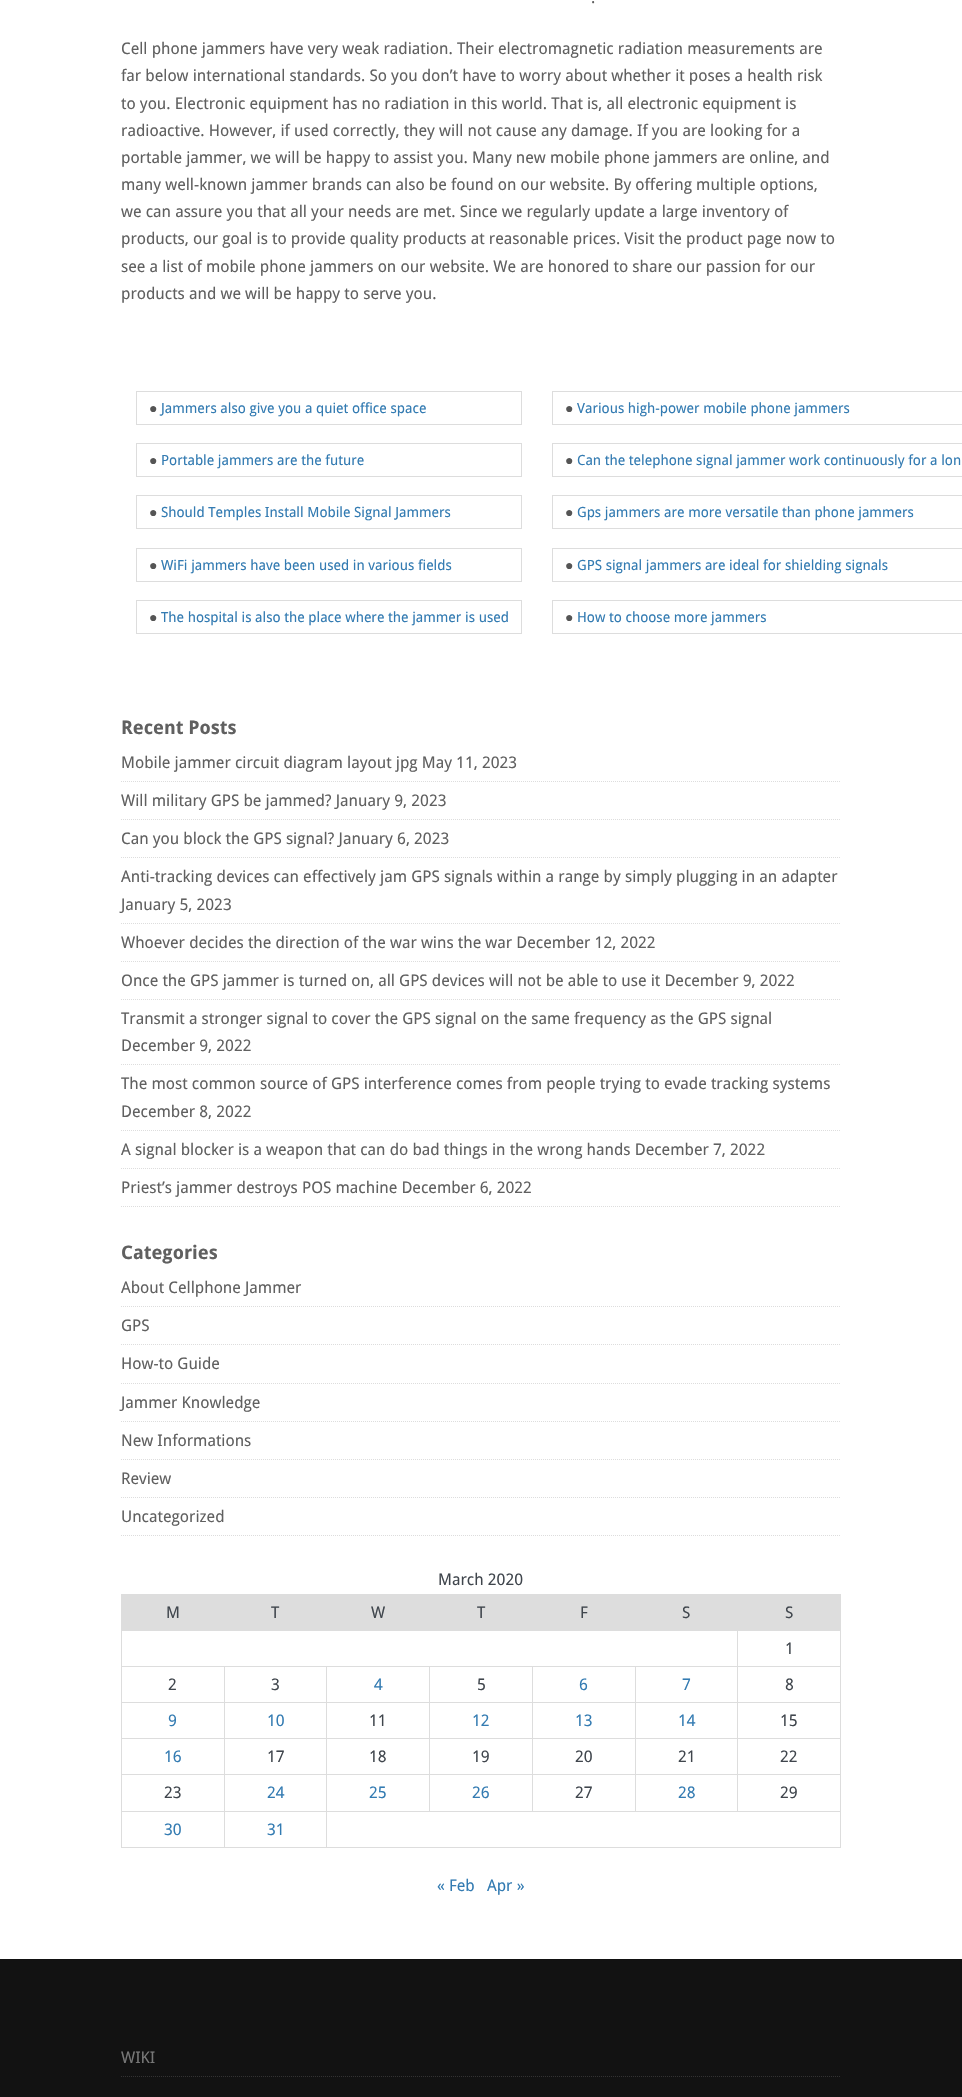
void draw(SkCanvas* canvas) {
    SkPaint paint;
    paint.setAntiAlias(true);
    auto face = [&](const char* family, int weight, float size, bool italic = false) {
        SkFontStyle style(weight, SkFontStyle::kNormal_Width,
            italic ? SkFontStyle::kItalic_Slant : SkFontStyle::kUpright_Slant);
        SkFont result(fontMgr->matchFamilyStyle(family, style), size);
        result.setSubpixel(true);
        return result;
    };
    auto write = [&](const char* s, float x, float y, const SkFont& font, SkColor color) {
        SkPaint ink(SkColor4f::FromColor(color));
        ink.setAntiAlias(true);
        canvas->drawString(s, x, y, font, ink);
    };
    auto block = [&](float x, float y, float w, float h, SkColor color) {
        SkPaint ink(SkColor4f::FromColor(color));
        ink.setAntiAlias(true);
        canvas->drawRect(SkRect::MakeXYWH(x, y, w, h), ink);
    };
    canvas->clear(SK_ColorWHITE);
    auto kFont1 = face("Droid Sans", 400, 16);
    write(".", 591, 3, kFont1, SkColorSetRGB(96, 96, 96));
    write("Cell phone jammers have very weak radiation. Their electromagnetic radiation measurements are", 121, 54, kFont1, SkColorSetRGB(96, 96, 96));
    write("far below international standards. So you don’t have to worry about whether it poses a health risk", 121, 81, kFont1, SkColorSetRGB(96, 96, 96));
    write("to you. Electronic equipment has no radiation in this world. That is, all electronic equipment is", 121, 109, kFont1, SkColorSetRGB(96, 96, 96));
    write("radioactive. However, if used correctly, they will not cause any damage. If you are looking for a", 121, 136, kFont1, SkColorSetRGB(96, 96, 96));
    write("portable jammer, we will be happy to assist you. Many new mobile phone jammers are online, and", 121, 163, kFont1, SkColorSetRGB(96, 96, 96));
    write("many well-known jammer brands can also be found on our website. By offering multiple options,", 121, 190, kFont1, SkColorSetRGB(96, 96, 96));
    write("we can assure you that all your needs are met. Since we regularly update a large inventory of", 121, 217, kFont1, SkColorSetRGB(96, 96, 96));
    write("products, our goal is to provide quality products at reasonable prices. Visit the product page now to", 121, 244, kFont1, SkColorSetRGB(96, 96, 96));
    write("see a list of mobile phone jammers on our website. We are honored to share our passion for our", 121, 272, kFont1, SkColorSetRGB(96, 96, 96));
    write("products and we will be happy to serve you.", 121, 299, kFont1, SkColorSetRGB(96, 96, 96));
    paint.setStyle(SkPaint::kStroke_Style);
    paint.setStrokeWidth(1);
    paint.setColor(SkColorSetRGB(221, 221, 221));
    canvas->drawRect(SkRect::MakeXYWH(136.5f, 391.5f, 385, 33), paint);
    auto kFont2 = face("Liberation Sans", 400, 14);
    write("●", 149, 413, kFont2, SkColorSetRGB(85, 85, 85));
    auto kFont3 = face("Droid Sans", 400, 14);
    write("Jammers also give you a quiet office space", 161, 413, kFont3, SkColorSetRGB(51, 123, 178));
    canvas->drawRect(SkRect::MakeXYWH(136.5f, 443.5f, 385, 33), paint);
    write("●", 149, 465, kFont2, SkColorSetRGB(85, 85, 85));
    write("Portable jammers are the future", 161, 465, kFont3, SkColorSetRGB(51, 123, 178));
    canvas->drawRect(SkRect::MakeXYWH(136.5f, 495.5f, 385, 33), paint);
    write("●", 149, 517, kFont2, SkColorSetRGB(85, 85, 85));
    write("Should Temples Install Mobile Signal Jammers", 161, 517, kFont3, SkColorSetRGB(51, 123, 178));
    canvas->drawRect(SkRect::MakeXYWH(136.5f, 548.5f, 385, 33), paint);
    write("●", 149, 570, kFont2, SkColorSetRGB(85, 85, 85));
    write("WiFi jammers have been used in various fields", 161, 570, kFont3, SkColorSetRGB(51, 123, 178));
    canvas->drawRect(SkRect::MakeXYWH(136.5f, 600.5f, 385, 33), paint);
    write("●", 149, 622, kFont2, SkColorSetRGB(85, 85, 85));
    write("The hospital is also the place where the jammer is used", 161, 622, kFont3, SkColorSetRGB(51, 123, 178));
    canvas->drawRect(SkRect::MakeXYWH(552.5f, 391.5f, 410, 33), paint);
    write("●", 565, 413, kFont2, SkColorSetRGB(85, 85, 85));
    write("Various high-power mobile phone jammers", 577, 413, kFont3, SkColorSetRGB(51, 123, 178));
    canvas->drawRect(SkRect::MakeXYWH(552.5f, 443.5f, 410, 33), paint);
    write("●", 565, 465, kFont2, SkColorSetRGB(85, 85, 85));
    write("Can the telephone signal jammer work continuously for a lon", 577, 465, kFont3, SkColorSetRGB(51, 123, 178));
    canvas->drawRect(SkRect::MakeXYWH(552.5f, 495.5f, 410, 33), paint);
    write("●", 565, 517, kFont2, SkColorSetRGB(85, 85, 85));
    write("Gps jammers are more versatile than phone jammers", 577, 517, kFont3, SkColorSetRGB(51, 123, 178));
    canvas->drawRect(SkRect::MakeXYWH(552.5f, 548.5f, 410, 33), paint);
    write("●", 565, 570, kFont2, SkColorSetRGB(85, 85, 85));
    write("GPS signal jammers are ideal for shielding signals", 577, 570, kFont3, SkColorSetRGB(51, 123, 178));
    canvas->drawRect(SkRect::MakeXYWH(552.5f, 600.5f, 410, 33), paint);
    write("●", 565, 622, kFont2, SkColorSetRGB(85, 85, 85));
    write("How to choose more jammers", 577, 622, kFont3, SkColorSetRGB(51, 123, 178));
    auto kFont4 = face("Droid Sans", 700, 18.75f);
    write("Recent Posts", 121, 734, kFont4, SkColorSetRGB(96, 96, 96));
    paint.setPathEffect(SkDashPathEffect::Make({{1, 1}}, 0));
    canvas->drawPath(SkPathBuilder().moveTo(121, 781.5f).lineTo(841, 781.5f).detach(), paint);
    paint.setPathEffect(nullptr);
    write("Mobile jammer circuit diagram layout jpg May 11, 2023", 121, 768, kFont1, SkColorSetRGB(96, 96, 96));
    paint.setPathEffect(SkDashPathEffect::Make({{1, 1}}, 0));
    canvas->drawPath(SkPathBuilder().moveTo(121, 819.5f).lineTo(841, 819.5f).detach(), paint);
    paint.setPathEffect(nullptr);
    write("Will military GPS be jammed? January 9, 2023", 121, 806, kFont1, SkColorSetRGB(96, 96, 96));
    paint.setPathEffect(SkDashPathEffect::Make({{1, 1}}, 0));
    canvas->drawPath(SkPathBuilder().moveTo(121, 857.5f).lineTo(841, 857.5f).detach(), paint);
    paint.setPathEffect(nullptr);
    write("Can you block the GPS signal? January 6, 2023", 121, 844, kFont1, SkColorSetRGB(96, 96, 96));
    paint.setPathEffect(SkDashPathEffect::Make({{1, 1}}, 0));
    canvas->drawPath(SkPathBuilder().moveTo(121, 923.5f).lineTo(841, 923.5f).detach(), paint);
    paint.setPathEffect(nullptr);
    write("Anti-tracking devices can effectively jam GPS signals within a range by simply plugging in an adapter", 121, 882, kFont1, SkColorSetRGB(96, 96, 96));
    write("January 5, 2023", 121, 910, kFont1, SkColorSetRGB(96, 96, 96));
    paint.setPathEffect(SkDashPathEffect::Make({{1, 1}}, 0));
    canvas->drawPath(SkPathBuilder().moveTo(121, 961.5f).lineTo(841, 961.5f).detach(), paint);
    paint.setPathEffect(nullptr);
    write("Whoever decides the direction of the war wins the war December 12, 2022", 121, 948, kFont1, SkColorSetRGB(96, 96, 96));
    paint.setPathEffect(SkDashPathEffect::Make({{1, 1}}, 0));
    canvas->drawPath(SkPathBuilder().moveTo(121, 999.5f).lineTo(841, 999.5f).detach(), paint);
    paint.setPathEffect(nullptr);
    write("Once the GPS jammer is turned on, all GPS devices will not be able to use it December 9, 2022", 121, 986, kFont1, SkColorSetRGB(96, 96, 96));
    paint.setPathEffect(SkDashPathEffect::Make({{1, 1}}, 0));
    canvas->drawPath(SkPathBuilder().moveTo(121, 1064.5f).lineTo(841, 1064.5f).detach(), paint);
    paint.setPathEffect(nullptr);
    write("Transmit a stronger signal to cover the GPS signal on the same frequency as the GPS signal", 121, 1024, kFont1, SkColorSetRGB(96, 96, 96));
    write("December 9, 2022", 121, 1051, kFont1, SkColorSetRGB(96, 96, 96));
    paint.setPathEffect(SkDashPathEffect::Make({{1, 1}}, 0));
    canvas->drawPath(SkPathBuilder().moveTo(121, 1130.5f).lineTo(841, 1130.5f).detach(), paint);
    paint.setPathEffect(nullptr);
    write("The most common source of GPS interference comes from people trying to evade tracking systems", 121, 1089, kFont1, SkColorSetRGB(96, 96, 96));
    write("December 8, 2022", 121, 1117, kFont1, SkColorSetRGB(96, 96, 96));
    paint.setPathEffect(SkDashPathEffect::Make({{1, 1}}, 0));
    canvas->drawPath(SkPathBuilder().moveTo(121, 1168.5f).lineTo(841, 1168.5f).detach(), paint);
    paint.setPathEffect(nullptr);
    write("A signal blocker is a weapon that can do bad things in the wrong hands December 7, 2022", 121, 1155, kFont1, SkColorSetRGB(96, 96, 96));
    paint.setPathEffect(SkDashPathEffect::Make({{1, 1}}, 0));
    canvas->drawPath(SkPathBuilder().moveTo(121, 1206.5f).lineTo(841, 1206.5f).detach(), paint);
    paint.setPathEffect(nullptr);
    write("Priest’s jammer destroys POS machine December 6, 2022", 121, 1193, kFont1, SkColorSetRGB(96, 96, 96));
    write("Categories", 121, 1259, kFont4, SkColorSetRGB(96, 96, 96));
    paint.setPathEffect(SkDashPathEffect::Make({{1, 1}}, 0));
    canvas->drawPath(SkPathBuilder().moveTo(121, 1306.5f).lineTo(841, 1306.5f).detach(), paint);
    paint.setPathEffect(nullptr);
    write("About Cellphone Jammer", 121, 1293, kFont1, SkColorSetRGB(96, 96, 96));
    paint.setPathEffect(SkDashPathEffect::Make({{1, 1}}, 0));
    canvas->drawPath(SkPathBuilder().moveTo(121, 1344.5f).lineTo(841, 1344.5f).detach(), paint);
    paint.setPathEffect(nullptr);
    write("GPS", 121, 1331, kFont1, SkColorSetRGB(96, 96, 96));
    paint.setPathEffect(SkDashPathEffect::Make({{1, 1}}, 0));
    canvas->drawPath(SkPathBuilder().moveTo(121, 1383.5f).lineTo(841, 1383.5f).detach(), paint);
    paint.setPathEffect(nullptr);
    write("How-to Guide", 121, 1369, kFont1, SkColorSetRGB(96, 96, 96));
    paint.setPathEffect(SkDashPathEffect::Make({{1, 1}}, 0));
    canvas->drawPath(SkPathBuilder().moveTo(121, 1421.5f).lineTo(841, 1421.5f).detach(), paint);
    paint.setPathEffect(nullptr);
    write("Jammer Knowledge", 121, 1408, kFont1, SkColorSetRGB(96, 96, 96));
    paint.setPathEffect(SkDashPathEffect::Make({{1, 1}}, 0));
    canvas->drawPath(SkPathBuilder().moveTo(121, 1459.5f).lineTo(841, 1459.5f).detach(), paint);
    paint.setPathEffect(nullptr);
    write("New Informations", 121, 1446, kFont1, SkColorSetRGB(96, 96, 96));
    paint.setPathEffect(SkDashPathEffect::Make({{1, 1}}, 0));
    canvas->drawPath(SkPathBuilder().moveTo(121, 1497.5f).lineTo(841, 1497.5f).detach(), paint);
    paint.setPathEffect(nullptr);
    write("Review", 121, 1484, kFont1, SkColorSetRGB(96, 96, 96));
    paint.setPathEffect(SkDashPathEffect::Make({{1, 1}}, 0));
    canvas->drawPath(SkPathBuilder().moveTo(121, 1535.5f).lineTo(841, 1535.5f).detach(), paint);
    paint.setPathEffect(nullptr);
    write("Uncategorized", 121, 1522, kFont1, SkColorSetRGB(96, 96, 96));
    write("March 2020", 438, 1585, kFont1, SkColorSetRGB(64, 70, 77));
    block(122, 1595, 102, 35, SkColorSetRGB(221, 221, 221));
    block(224, 1594, 617, 36, SkColorSetRGB(221, 221, 221));
    block(121, 1594, 104, 1, SkColorSetRGB(221, 221, 221));
    block(737, 1630, 104, 1, SkColorSetRGB(221, 221, 221));
    block(737, 1666, 104, 1, SkColorSetRGB(221, 221, 221));
    block(737, 1702, 104, 1, SkColorSetRGB(221, 221, 221));
    block(737, 1738, 104, 1, SkColorSetRGB(221, 221, 221));
    block(737, 1774, 104, 1, SkColorSetRGB(221, 221, 221));
    block(326, 1811, 515, 1, SkColorSetRGB(221, 221, 221));
    block(737, 1774, 1, 38, SkColorSetRGB(221, 221, 221));
    block(635, 1774, 103, 1, SkColorSetRGB(221, 221, 221));
    block(737, 1738, 1, 37, SkColorSetRGB(221, 221, 221));
    block(635, 1738, 103, 1, SkColorSetRGB(221, 221, 221));
    block(737, 1702, 1, 37, SkColorSetRGB(221, 221, 221));
    block(635, 1702, 103, 1, SkColorSetRGB(221, 221, 221));
    block(737, 1666, 1, 37, SkColorSetRGB(221, 221, 221));
    block(635, 1666, 103, 1, SkColorSetRGB(221, 221, 221));
    block(737, 1630, 1, 37, SkColorSetRGB(221, 221, 221));
    block(121, 1630, 617, 1, SkColorSetRGB(221, 221, 221));
    block(635, 1774, 1, 38, SkColorSetRGB(221, 221, 221));
    block(532, 1774, 104, 1, SkColorSetRGB(221, 221, 221));
    block(635, 1738, 1, 37, SkColorSetRGB(221, 221, 221));
    block(532, 1738, 104, 1, SkColorSetRGB(221, 221, 221));
    block(635, 1702, 1, 37, SkColorSetRGB(221, 221, 221));
    block(532, 1702, 104, 1, SkColorSetRGB(221, 221, 221));
    block(635, 1666, 1, 37, SkColorSetRGB(221, 221, 221));
    block(532, 1666, 104, 1, SkColorSetRGB(221, 221, 221));
    block(532, 1774, 1, 38, SkColorSetRGB(221, 221, 221));
    block(429, 1774, 104, 1, SkColorSetRGB(221, 221, 221));
    block(532, 1738, 1, 37, SkColorSetRGB(221, 221, 221));
    block(429, 1738, 104, 1, SkColorSetRGB(221, 221, 221));
    block(532, 1702, 1, 37, SkColorSetRGB(221, 221, 221));
    block(429, 1702, 104, 1, SkColorSetRGB(221, 221, 221));
    block(532, 1666, 1, 37, SkColorSetRGB(221, 221, 221));
    block(429, 1666, 104, 1, SkColorSetRGB(221, 221, 221));
    block(429, 1774, 1, 38, SkColorSetRGB(221, 221, 221));
    block(326, 1774, 104, 1, SkColorSetRGB(221, 221, 221));
    block(429, 1738, 1, 37, SkColorSetRGB(221, 221, 221));
    block(326, 1738, 104, 1, SkColorSetRGB(221, 221, 221));
    block(429, 1702, 1, 37, SkColorSetRGB(221, 221, 221));
    block(326, 1702, 104, 1, SkColorSetRGB(221, 221, 221));
    block(429, 1666, 1, 37, SkColorSetRGB(221, 221, 221));
    block(326, 1666, 104, 1, SkColorSetRGB(221, 221, 221));
    block(840, 1811, 1, 37, SkColorSetRGB(221, 221, 221));
    block(326, 1847, 515, 1, SkColorSetRGB(221, 221, 221));
    block(326, 1811, 1, 37, SkColorSetRGB(221, 221, 221));
    block(224, 1811, 103, 1, SkColorSetRGB(221, 221, 221));
    block(326, 1774, 1, 38, SkColorSetRGB(221, 221, 221));
    block(224, 1774, 103, 1, SkColorSetRGB(221, 221, 221));
    block(326, 1738, 1, 37, SkColorSetRGB(221, 221, 221));
    block(224, 1738, 103, 1, SkColorSetRGB(221, 221, 221));
    block(326, 1702, 1, 37, SkColorSetRGB(221, 221, 221));
    block(224, 1702, 103, 1, SkColorSetRGB(221, 221, 221));
    block(326, 1666, 1, 37, SkColorSetRGB(221, 221, 221));
    block(224, 1666, 103, 1, SkColorSetRGB(221, 221, 221));
    block(224, 1847, 103, 1, SkColorSetRGB(221, 221, 221));
    block(224, 1811, 1, 37, SkColorSetRGB(221, 221, 221));
    block(121, 1811, 104, 1, SkColorSetRGB(221, 221, 221));
    block(224, 1774, 1, 38, SkColorSetRGB(221, 221, 221));
    block(121, 1774, 104, 1, SkColorSetRGB(221, 221, 221));
    block(224, 1738, 1, 37, SkColorSetRGB(221, 221, 221));
    block(121, 1738, 104, 1, SkColorSetRGB(221, 221, 221));
    block(224, 1702, 1, 37, SkColorSetRGB(221, 221, 221));
    block(121, 1702, 104, 1, SkColorSetRGB(221, 221, 221));
    block(224, 1666, 1, 37, SkColorSetRGB(221, 221, 221));
    block(121, 1666, 104, 1, SkColorSetRGB(221, 221, 221));
    block(121, 1847, 104, 1, SkColorSetRGB(221, 221, 221));
    block(121, 1811, 1, 37, SkColorSetRGB(221, 221, 221));
    block(121, 1774, 1, 38, SkColorSetRGB(221, 221, 221));
    block(121, 1738, 1, 37, SkColorSetRGB(221, 221, 221));
    block(121, 1702, 1, 37, SkColorSetRGB(221, 221, 221));
    block(121, 1666, 1, 37, SkColorSetRGB(221, 221, 221));
    block(121, 1630, 1, 37, SkColorSetRGB(221, 221, 221));
    block(121, 1594, 1, 37, SkColorSetRGB(221, 221, 221));
    write("M", 166, 1618, kFont1, SkColorSetRGB(64, 70, 77));
    write("T", 271, 1618, kFont1, SkColorSetRGB(64, 70, 77));
    write("W", 371, 1618, kFont1, SkColorSetRGB(64, 70, 77));
    write("T", 477, 1618, kFont1, SkColorSetRGB(64, 70, 77));
    write("F", 580, 1618, kFont1, SkColorSetRGB(64, 70, 77));
    write("S", 682, 1618, kFont1, SkColorSetRGB(64, 70, 77));
    write("S", 785, 1618, kFont1, SkColorSetRGB(64, 70, 77));
    block(840, 1774, 1, 38, SkColorSetRGB(221, 221, 221));
    block(840, 1738, 1, 37, SkColorSetRGB(221, 221, 221));
    block(840, 1702, 1, 37, SkColorSetRGB(221, 221, 221));
    block(840, 1666, 1, 37, SkColorSetRGB(221, 221, 221));
    block(840, 1630, 1, 37, SkColorSetRGB(221, 221, 221));
    write("1", 785, 1654, kFont1, SkColorSetRGB(64, 70, 77));
    write("2", 168, 1690, kFont1, SkColorSetRGB(64, 70, 77));
    write("3", 271, 1690, kFont1, SkColorSetRGB(64, 70, 77));
    write("4", 374, 1690, kFont1, SkColorSetRGB(51, 123, 178));
    write("5", 477, 1690, kFont1, SkColorSetRGB(64, 70, 77));
    write("6", 579, 1690, kFont1, SkColorSetRGB(51, 123, 178));
    write("7", 682, 1690, kFont1, SkColorSetRGB(51, 123, 178));
    write("8", 785, 1690, kFont1, SkColorSetRGB(64, 70, 77));
    write("9", 168, 1726, kFont1, SkColorSetRGB(51, 123, 178));
    write("10", 267, 1726, kFont1, SkColorSetRGB(51, 123, 178));
    write("11", 369, 1726, kFont1, SkColorSetRGB(64, 70, 77));
    write("12", 472, 1726, kFont1, SkColorSetRGB(51, 123, 178));
    write("13", 575, 1726, kFont1, SkColorSetRGB(51, 123, 178));
    write("14", 678, 1726, kFont1, SkColorSetRGB(51, 123, 178));
    write("15", 780, 1726, kFont1, SkColorSetRGB(64, 70, 77));
    write("16", 164, 1762, kFont1, SkColorSetRGB(51, 123, 178));
    write("17", 267, 1762, kFont1, SkColorSetRGB(64, 70, 77));
    write("18", 369, 1762, kFont1, SkColorSetRGB(64, 70, 77));
    write("19", 472, 1762, kFont1, SkColorSetRGB(64, 70, 77));
    write("20", 575, 1762, kFont1, SkColorSetRGB(64, 70, 77));
    write("21", 678, 1762, kFont1, SkColorSetRGB(64, 70, 77));
    write("22", 780, 1762, kFont1, SkColorSetRGB(64, 70, 77));
    write("23", 164, 1798, kFont1, SkColorSetRGB(64, 70, 77));
    write("24", 267, 1798, kFont1, SkColorSetRGB(51, 123, 178));
    write("25", 369, 1798, kFont1, SkColorSetRGB(51, 123, 178));
    write("26", 472, 1798, kFont1, SkColorSetRGB(51, 123, 178));
    write("27", 575, 1798, kFont1, SkColorSetRGB(64, 70, 77));
    write("28", 678, 1798, kFont1, SkColorSetRGB(51, 123, 178));
    write("29", 780, 1798, kFont1, SkColorSetRGB(64, 70, 77));
    write("30", 164, 1835, kFont1, SkColorSetRGB(51, 123, 178));
    write("31", 267, 1835, kFont1, SkColorSetRGB(51, 123, 178));
    write("« Feb", 437, 1891, kFont1, SkColorSetRGB(51, 123, 178));
    write("Apr »", 487, 1891, kFont1, SkColorSetRGB(51, 123, 178));
    block(0, 1959, 962, 138, SkColorSetRGB(18, 18, 18));
    paint.setColor(SkColorSetRGB(51, 51, 51));
    paint.setPathEffect(SkDashPathEffect::Make({{1, 1}}, 0));
    canvas->drawPath(SkPathBuilder().moveTo(121, 2076.5f).lineTo(841, 2076.5f).detach(), paint);
    paint.setPathEffect(nullptr);
    write("WIKI", 121, 2063, kFont1, SkColorSetRGB(119, 119, 119));
}
